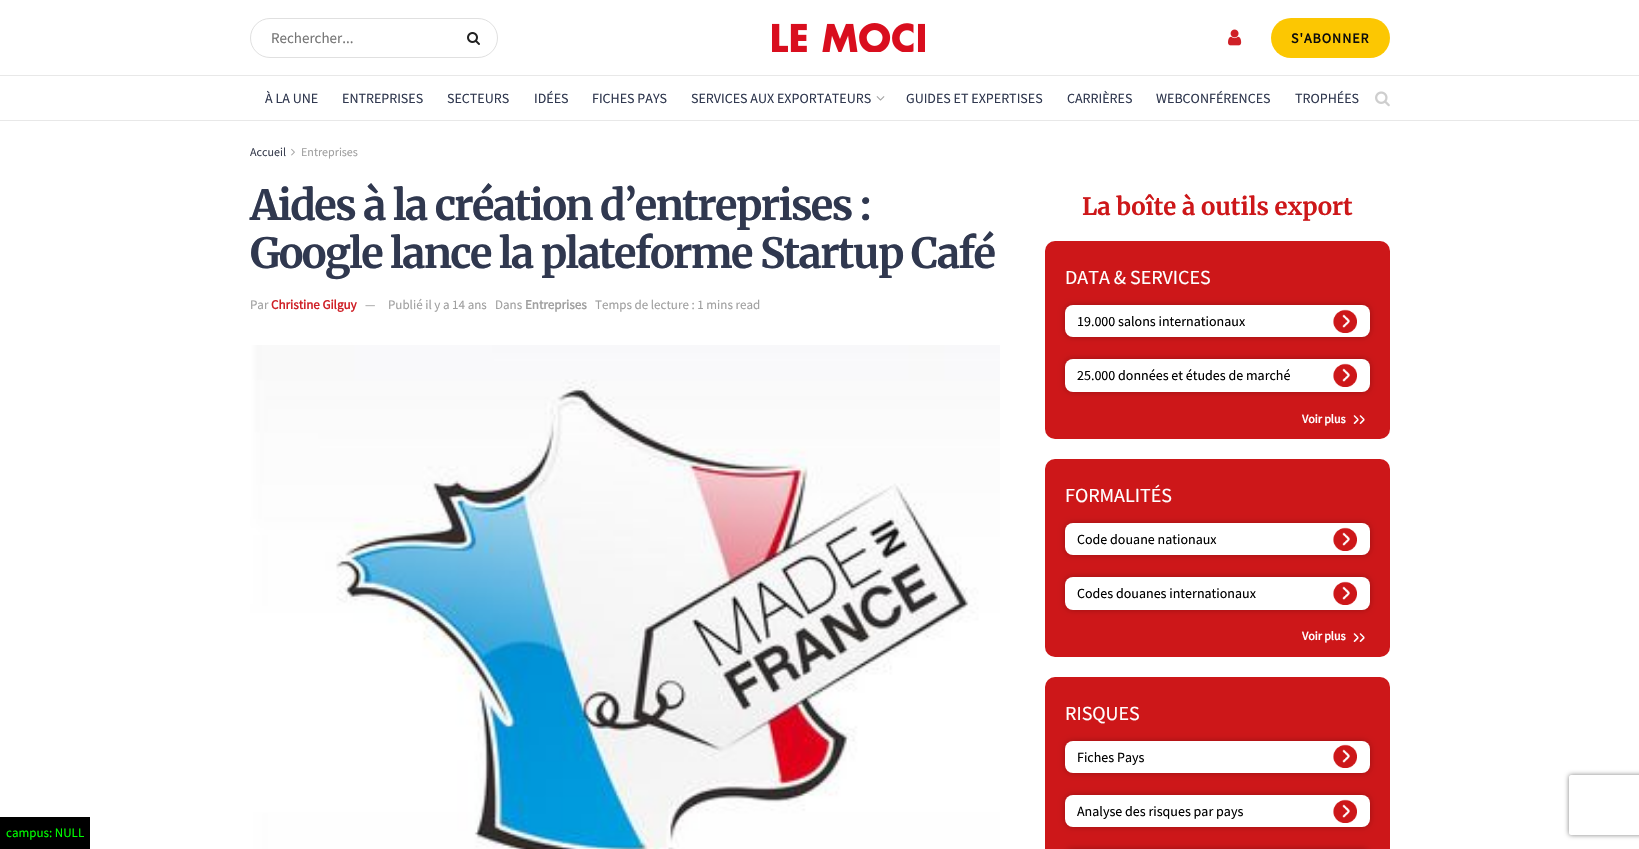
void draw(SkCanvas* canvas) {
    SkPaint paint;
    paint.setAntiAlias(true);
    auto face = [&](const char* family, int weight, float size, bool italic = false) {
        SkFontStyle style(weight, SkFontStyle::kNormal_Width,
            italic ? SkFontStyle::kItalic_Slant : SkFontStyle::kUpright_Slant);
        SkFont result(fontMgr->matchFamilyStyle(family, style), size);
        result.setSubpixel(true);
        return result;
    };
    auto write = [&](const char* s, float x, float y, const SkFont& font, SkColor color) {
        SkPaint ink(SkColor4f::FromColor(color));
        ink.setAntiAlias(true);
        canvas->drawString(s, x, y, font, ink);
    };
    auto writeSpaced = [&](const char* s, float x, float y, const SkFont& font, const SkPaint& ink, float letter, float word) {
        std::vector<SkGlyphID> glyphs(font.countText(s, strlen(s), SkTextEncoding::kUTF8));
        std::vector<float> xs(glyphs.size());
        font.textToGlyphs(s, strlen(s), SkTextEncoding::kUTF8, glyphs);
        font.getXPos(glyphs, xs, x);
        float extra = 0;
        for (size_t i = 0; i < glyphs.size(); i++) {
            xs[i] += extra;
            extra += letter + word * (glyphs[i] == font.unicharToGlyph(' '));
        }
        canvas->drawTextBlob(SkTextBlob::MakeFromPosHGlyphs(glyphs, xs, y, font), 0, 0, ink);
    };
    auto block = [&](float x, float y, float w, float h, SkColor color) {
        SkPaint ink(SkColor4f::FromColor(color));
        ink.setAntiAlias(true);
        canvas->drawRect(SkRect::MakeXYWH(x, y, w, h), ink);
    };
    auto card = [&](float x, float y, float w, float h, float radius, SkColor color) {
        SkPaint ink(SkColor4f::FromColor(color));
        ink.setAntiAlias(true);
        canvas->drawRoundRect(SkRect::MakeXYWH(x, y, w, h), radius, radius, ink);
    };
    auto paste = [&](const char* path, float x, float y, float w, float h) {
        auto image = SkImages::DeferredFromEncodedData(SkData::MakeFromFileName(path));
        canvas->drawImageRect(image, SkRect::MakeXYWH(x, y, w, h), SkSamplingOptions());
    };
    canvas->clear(SK_ColorWHITE);
    block(0, 817, 90, 32, SK_ColorBLACK);
    auto kFont1 = face("Source Sans Pro", 400, 13);
    write("campus: NULL", 6, 837, kFont1, SkColorSetRGB(0, 255, 0));
    block(0, 75, 1639, 1, SkColorSetRGB(232, 232, 232));
    paint.setStyle(SkPaint::kStroke_Style);
    paint.setStrokeWidth(1);
    paint.setColor(SkColorSetRGB(224, 224, 224));
    canvas->drawRoundRect(SkRect::MakeXYWH(250.5f, 18.5f, 247, 39), 19.5f, 19.5f, paint);
    auto kFont2 = face("Source Sans Pro", 400, 15);
    write("Rechercher...", 271, 43, kFont2, SkColorSetRGB(117, 117, 117));
    paste("pic1.png", 467, 32, 13, 13);
    paste("pic2.png", 772, 23, 153, 29);
    paste("pic3.png", 1228, 29, 14, 17);
    card(1271, 18, 119, 40, 20, SkColorSetRGB(252, 199, 2));
    auto kFont3 = face("Source Sans Pro", 700, 14);
    paint.setStyle(SkPaint::kFill_Style);
    paint.setColor(SkColorSetRGB(12, 12, 12));
    writeSpaced("S'ABONNER", 1291, 43, kFont3, paint, 1, 0);
    block(0, 120, 1639, 1, SkColorSetRGB(232, 232, 232));
    auto kFont4 = face("Source Sans Pro", 400, 14);
    write("À LA UNE", 265, 103, kFont4, SkColorSetRGB(48, 56, 79));
    write("ENTREPRISES", 342, 103, kFont4, SkColorSetRGB(48, 56, 79));
    write("SECTEURS", 447, 103, kFont4, SkColorSetRGB(48, 56, 79));
    write("IDÉES", 534, 103, kFont4, SkColorSetRGB(48, 56, 79));
    write("FICHES PAYS", 592, 103, kFont4, SkColorSetRGB(48, 56, 79));
    write("SERVICES AUX EXPORTATEURS", 691, 103, kFont4, SkColorSetRGB(48, 56, 79));
    paste("pic4.png", 876, 96, 9, 5);
    write("GUIDES ET EXPERTISES", 906, 103, kFont4, SkColorSetRGB(48, 56, 79));
    write("CARRIÈRES", 1067, 103, kFont4, SkColorSetRGB(48, 56, 79));
    write("WEBCONFÉRENCES", 1156, 103, kFont4, SkColorSetRGB(48, 56, 79));
    write("TROPHÉES", 1295, 103, kFont4, SkColorSetRGB(48, 56, 79));
    paste("pic5.png", 1375, 91, 15, 16);
    auto kFont5 = face("Source Sans Pro", 400, 12);
    write("Accueil", 250, 156, kFont5, SkColorSetRGB(57, 62, 79));
    paste("pic6.png", 291, 148, 4, 8);
    write("Entreprises", 301, 156, kFont5, SkColorSetRGB(160, 160, 160));
    auto kFont6 = face("Merriweather", 700, 41.6f);
    paint.setColor(SkColorSetRGB(48, 56, 79));
    writeSpaced("Aides à la création d’entreprises :", 250, 220, kFont6, paint, -1.65f, 0);
    writeSpaced("Google lance la plateforme Startup Café", 250, 268, kFont6, paint, -1.65f, 0);
    write("Par", 250, 309, kFont1, SkColorSetRGB(160, 160, 160));
    auto kFont7 = face("Source Sans Pro", 700, 13);
    write("Christine Gilguy", 271, 309, kFont7, SkColorSetRGB(207, 32, 39));
    write("—", 365, 309, kFont1, SkColorSetRGB(160, 160, 160));
    write("Publié il y a 14 ans", 388, 309, kFont1, SkColorSetRGB(160, 160, 160));
    write("Dans", 495, 309, kFont1, SkColorSetRGB(160, 160, 160));
    write("Entreprises", 525, 309, kFont7, SkColorSetRGB(160, 160, 160));
    write("Temps de lecture : 1 mins read", 595, 309, kFont1, SkColorSetRGB(160, 160, 160));
    paste("pic7.png", 250, 345, 750, 504);
    auto kFont8 = face("Merriweather", 700, 24);
    write("La boîte à outils export", 1082, 215, kFont8, SkColorSetRGB(205, 23, 25));
    card(1045, 241, 345, 198, 10, SkColorSetRGB(205, 23, 25));
    auto kFont9 = face("Source Sans Pro", 400, 20);
    write("DATA & SERVICES", 1065, 284, kFont9, SK_ColorWHITE);
    paint.setColor(SkColorSetARGB(64, 0, 0, 0));
    paint.setMaskFilter(SkMaskFilter::MakeBlur(kNormal_SkBlurStyle, 3));
    canvas->drawRoundRect(SkRect::MakeXYWH(1065, 305, 305, 32), 8, 8, paint);
    paint.setMaskFilter(nullptr);
    card(1065, 305, 305, 32, 8, SK_ColorWHITE);
    write("19.000 salons internationaux", 1077, 326, kFont4, SK_ColorBLACK);
    paste("pic8.png", 1333, 309, 24, 24);
    paint.setMaskFilter(SkMaskFilter::MakeBlur(kNormal_SkBlurStyle, 3));
    canvas->drawRoundRect(SkRect::MakeXYWH(1065, 359, 305, 33), 8, 8, paint);
    paint.setMaskFilter(nullptr);
    card(1065, 359, 305, 33, 8, SK_ColorWHITE);
    write("25.000 données et études de marché", 1077, 380, kFont4, SK_ColorBLACK);
    paste("pic9.png", 1333, 363, 24, 24);
    auto kFont10 = face("Source Sans Pro", 700, 12);
    write("Voir plus", 1302, 423, kFont10, SK_ColorWHITE);
    paste("pic10.png", 1353, 415, 12, 9);
    card(1045, 459, 345, 198, 10, SkColorSetRGB(205, 23, 25));
    write("FORMALITÉS", 1065, 502, kFont9, SK_ColorWHITE);
    paint.setMaskFilter(SkMaskFilter::MakeBlur(kNormal_SkBlurStyle, 3));
    canvas->drawRoundRect(SkRect::MakeXYWH(1065, 523, 305, 32), 8, 8, paint);
    paint.setMaskFilter(nullptr);
    card(1065, 523, 305, 32, 8, SK_ColorWHITE);
    write("Code douane nationaux", 1077, 544, kFont4, SK_ColorBLACK);
    paste("pic9.png", 1333, 527, 24, 24);
    paint.setMaskFilter(SkMaskFilter::MakeBlur(kNormal_SkBlurStyle, 3));
    canvas->drawRoundRect(SkRect::MakeXYWH(1065, 577, 305, 33), 8, 8, paint);
    paint.setMaskFilter(nullptr);
    card(1065, 577, 305, 33, 8, SK_ColorWHITE);
    write("Codes douanes internationaux", 1077, 598, kFont4, SK_ColorBLACK);
    paste("pic9.png", 1333, 581, 24, 24);
    write("Voir plus", 1302, 640, kFont10, SK_ColorWHITE);
    paste("pic10.png", 1353, 633, 12, 9);
    card(1045, 677, 345, 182, 10, SkColorSetRGB(205, 23, 25));
    write("RISQUES", 1065, 720, kFont9, SK_ColorWHITE);
    paint.setMaskFilter(SkMaskFilter::MakeBlur(kNormal_SkBlurStyle, 3));
    canvas->drawRoundRect(SkRect::MakeXYWH(1065, 741, 305, 32), 8, 8, paint);
    paint.setMaskFilter(nullptr);
    card(1065, 741, 305, 32, 8, SK_ColorWHITE);
    write("Fiches Pays", 1077, 762, kFont4, SK_ColorBLACK);
    paste("pic9.png", 1333, 744, 24, 24);
    paint.setMaskFilter(SkMaskFilter::MakeBlur(kNormal_SkBlurStyle, 3));
    canvas->drawRoundRect(SkRect::MakeXYWH(1065, 795, 305, 32), 8, 8, paint);
    paint.setMaskFilter(nullptr);
    card(1065, 795, 305, 32, 8, SK_ColorWHITE);
    write("Analyse des risques par pays", 1077, 816, kFont4, SK_ColorBLACK);
    paste("pic9.png", 1333, 799, 24, 24);
    paint.setMaskFilter(SkMaskFilter::MakeBlur(kNormal_SkBlurStyle, 3));
    canvas->drawRoundRect(SkRect::MakeXYWH(1065, 849, 305, 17), 8, 8, paint);
    paint.setMaskFilter(nullptr);
    canvas->save();
    canvas->clipPath(SkPathBuilder(SkPathFillType::kEvenOdd).moveTo(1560, 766).lineTo(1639, 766).lineTo(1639, 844).lineTo(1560, 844).close().moveTo(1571, 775).lineTo(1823, 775).cubicTo(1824, 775, 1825, 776, 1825, 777).lineTo(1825, 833).cubicTo(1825, 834, 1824, 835, 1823, 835).lineTo(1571, 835).cubicTo(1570, 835, 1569, 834, 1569, 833).lineTo(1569, 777).cubicTo(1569, 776, 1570, 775, 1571, 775).close().detach(), true);
    paint.setColor(SkColorSetRGB(128, 128, 128));
    paint.setMaskFilter(SkMaskFilter::MakeBlur(kNormal_SkBlurStyle, 2.5f));
    canvas->drawRoundRect(SkRect::MakeXYWH(1569, 775, 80, 60), 2, 2, paint);
    paint.setMaskFilter(nullptr);
    canvas->restore();
}
